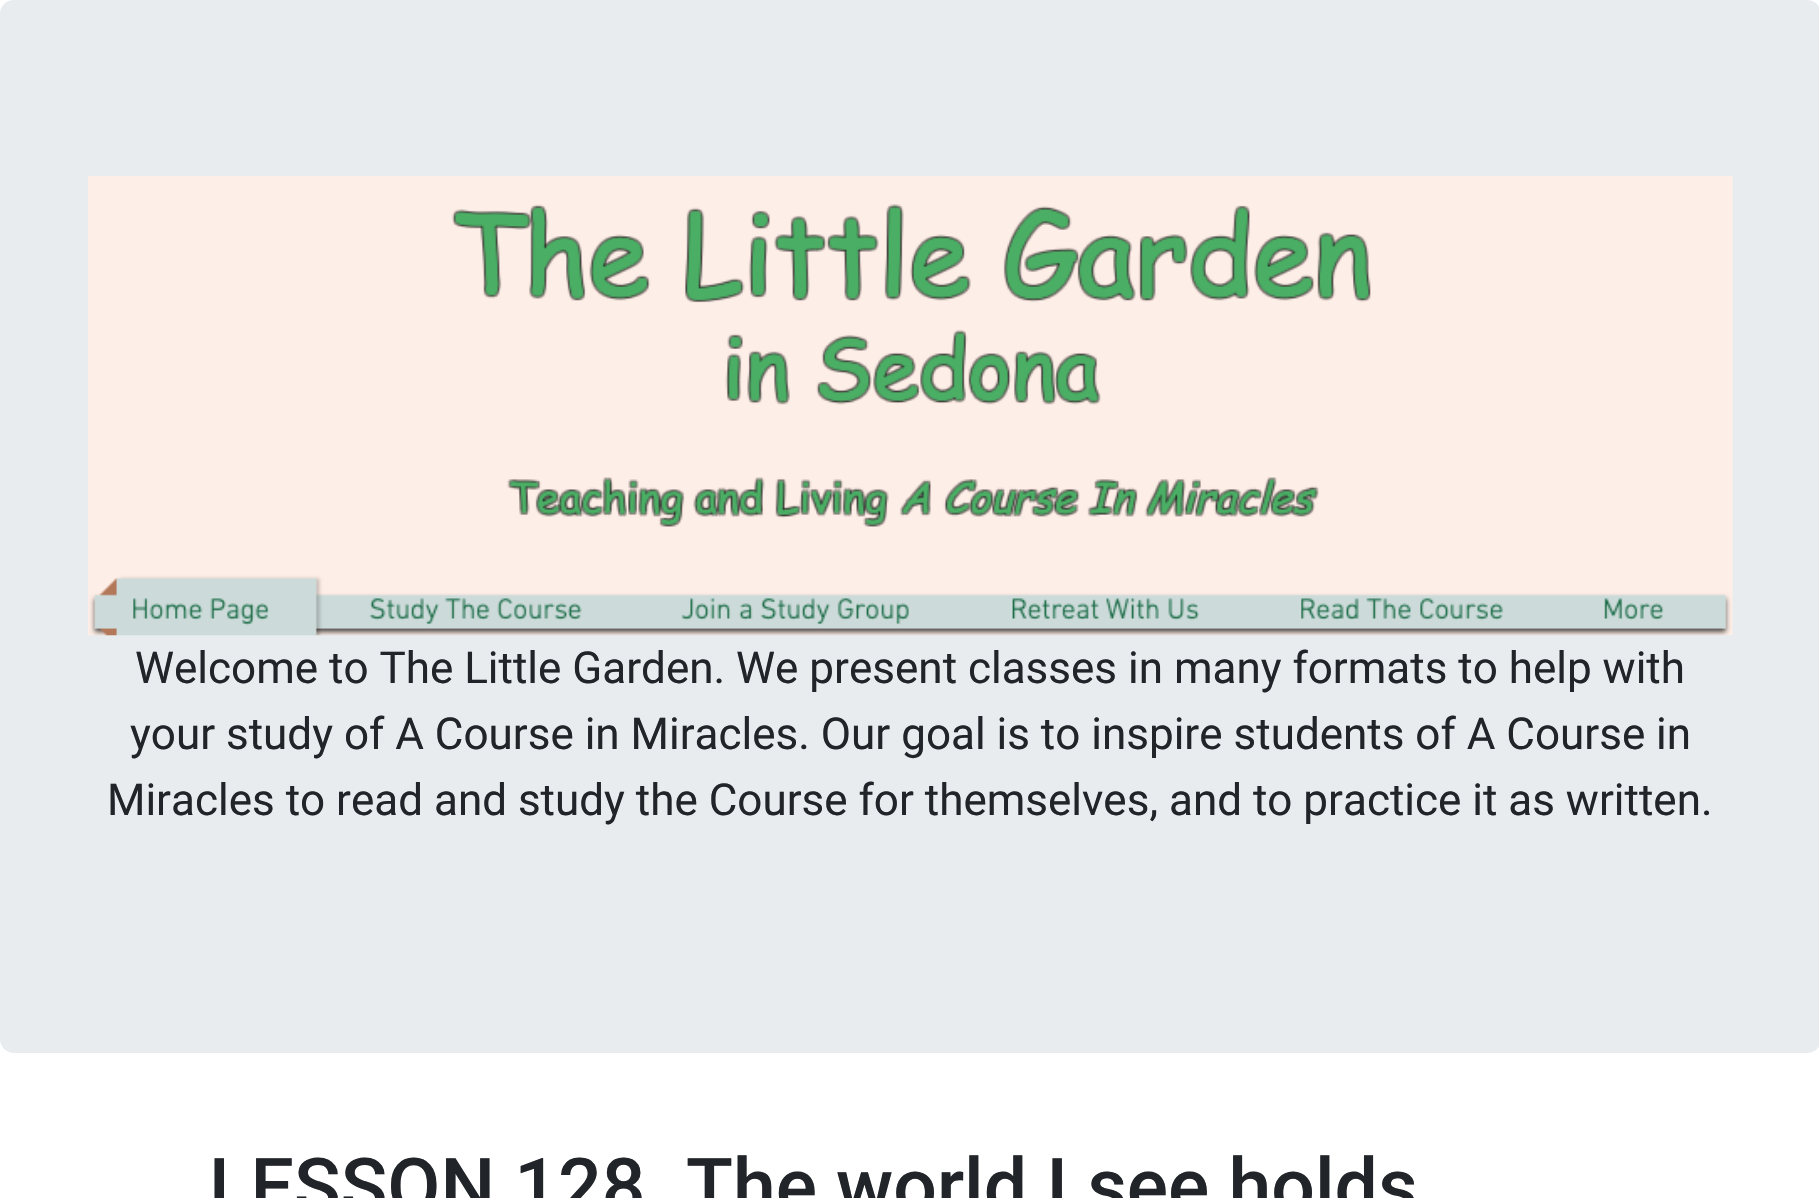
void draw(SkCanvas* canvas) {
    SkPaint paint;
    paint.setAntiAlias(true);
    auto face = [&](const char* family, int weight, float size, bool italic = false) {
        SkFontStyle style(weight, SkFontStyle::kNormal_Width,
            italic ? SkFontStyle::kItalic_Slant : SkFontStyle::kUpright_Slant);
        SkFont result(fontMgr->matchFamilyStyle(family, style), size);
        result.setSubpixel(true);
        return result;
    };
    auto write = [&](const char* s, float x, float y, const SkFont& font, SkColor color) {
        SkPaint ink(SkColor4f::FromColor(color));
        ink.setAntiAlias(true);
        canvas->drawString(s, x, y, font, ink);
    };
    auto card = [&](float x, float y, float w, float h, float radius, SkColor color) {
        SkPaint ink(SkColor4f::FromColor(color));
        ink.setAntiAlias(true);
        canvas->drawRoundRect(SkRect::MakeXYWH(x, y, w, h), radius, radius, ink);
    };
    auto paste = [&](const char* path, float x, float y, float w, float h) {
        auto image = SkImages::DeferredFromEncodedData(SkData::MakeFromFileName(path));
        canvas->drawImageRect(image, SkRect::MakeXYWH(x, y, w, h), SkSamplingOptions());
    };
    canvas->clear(SK_ColorWHITE);
    card(0, 0, 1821, 1053, 14, SkColorSetRGB(233, 236, 239));
    paste("pic1.png", 88, 176, 1645, 460);
    auto kFont1 = face("Roboto", 400, 44);
    write("Welcome to The Little Garden. We present classes in many formats to help with", 135, 683, kFont1, SkColorSetRGB(33, 37, 41));
    write("your study of A Course in Miracles. Our goal is to inspire students of A Course in", 130, 749, kFont1, SkColorSetRGB(33, 37, 41));
    write("Miracles to read and study the Course for themselves, and to practice it as written.", 107, 815, kFont1, SkColorSetRGB(33, 37, 41));
    auto kFont2 = face("Roboto", 500, 77);
    write("LESSON 128. The world I see holds", 209, 1213, kFont2, SkColorSetRGB(33, 37, 41));
}
